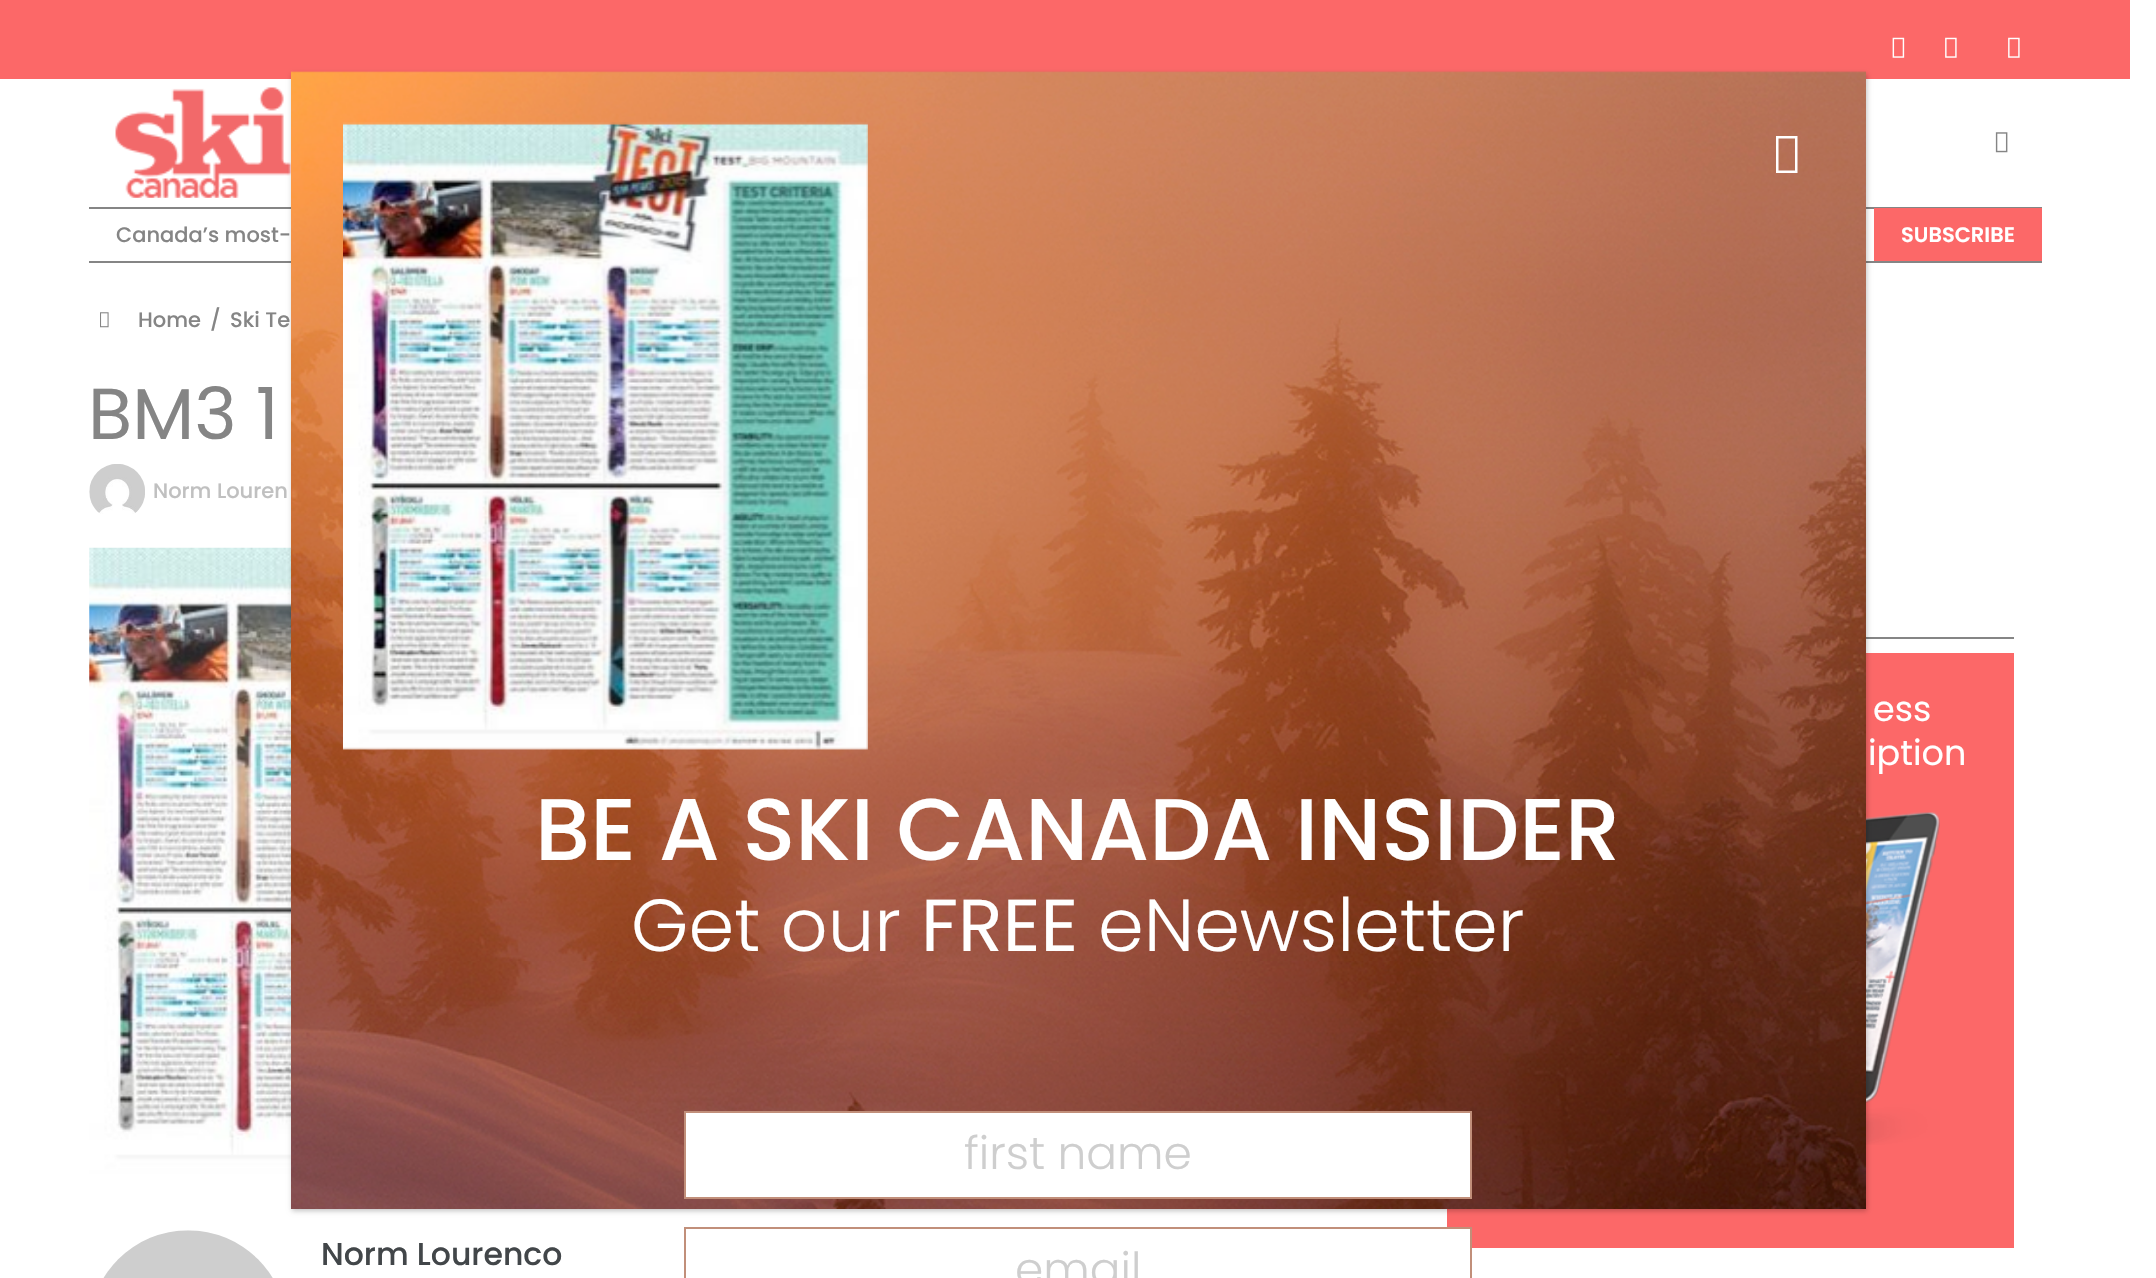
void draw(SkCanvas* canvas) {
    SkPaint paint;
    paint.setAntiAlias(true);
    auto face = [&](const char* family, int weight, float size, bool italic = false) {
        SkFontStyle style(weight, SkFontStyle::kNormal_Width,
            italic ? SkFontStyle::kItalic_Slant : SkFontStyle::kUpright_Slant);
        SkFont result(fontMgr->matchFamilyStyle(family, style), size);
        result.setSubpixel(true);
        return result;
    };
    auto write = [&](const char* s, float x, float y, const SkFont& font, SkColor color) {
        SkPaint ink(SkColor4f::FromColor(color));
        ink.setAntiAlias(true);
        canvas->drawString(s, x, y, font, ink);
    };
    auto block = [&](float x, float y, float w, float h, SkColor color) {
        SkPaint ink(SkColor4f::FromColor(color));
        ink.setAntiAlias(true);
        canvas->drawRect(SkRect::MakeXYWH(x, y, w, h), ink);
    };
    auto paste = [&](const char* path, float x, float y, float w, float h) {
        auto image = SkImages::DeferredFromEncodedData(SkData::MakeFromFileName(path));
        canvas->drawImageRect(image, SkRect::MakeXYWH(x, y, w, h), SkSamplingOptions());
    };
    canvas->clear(SK_ColorWHITE);
    block(0, 0, 2130, 79, SkColorSetRGB(252, 104, 104));
    paste("pic1.png", 1892, 37, 13, 21);
    paste("pic2.png", 1945, 37, 12, 21);
    paste("pic2.png", 2008, 37, 12, 21);
    paste("pic3.png", 115, 87, 176, 111);
    paste("pic4.png", 1995, 132, 13, 21);
    block(89, 207, 1953, 2, SkColorSetRGB(133, 133, 133));
    block(89, 261, 1953, 2, SkColorSetRGB(133, 133, 133));
    auto kFont1 = face("Poppins", 500, 21);
    write("Canada’s most-", 116, 242, kFont1, SkColorSetRGB(133, 133, 133));
    block(1874, 208, 168, 53, SkColorSetRGB(252, 104, 104));
    auto kFont2 = face("Poppins", 600, 21);
    write("SUBSCRIBE", 1901, 242, kFont2, SK_ColorWHITE);
    paste("pic5.png", 100, 312, 9, 16);
    write("Home", 138, 327, kFont1, SkColorSetRGB(133, 133, 133));
    write("/", 210, 327, kFont1, SkColorSetRGB(133, 133, 133));
    write("Ski Te", 230, 327, kFont1, SkColorSetRGB(133, 133, 133));
    auto kFont3 = face("Poppins", 400, 72);
    write("BM3 1", 88, 439, kFont3, SkColorSetRGB(133, 133, 133));
    paste("pic6.png", 89, 464, 56, 50);
    write("Norm Louren", 153, 498, kFont1, SkColorSetRGB(192, 192, 192));
    paste("pic7.png", 89, 547, 202, 628);
    paste("pic8.png", 103, 1230, 170, 48);
    auto kFont4 = face("Poppins", 500, 31.5f);
    write("Norm Lourenco", 321, 1265, kFont4, SkColorSetRGB(66, 70, 73));
    block(1866, 637, 148, 2, SkColorSetRGB(133, 133, 133));
    block(1447, 653, 567, 595, SkColorSetRGB(252, 104, 104));
    auto kFont5 = face("Poppins", 400, 35);
    write("ess", 1873, 721, kFont5, SK_ColorWHITE);
    write("iption", 1868, 765, kFont5, SK_ColorWHITE);
    paste("pic9.png", 1866, 812, 74, 333);
    paint.setColor(SkColorSetARGB(59, 2, 2, 2));
    paint.setMaskFilter(SkMaskFilter::MakeBlur(kNormal_SkBlurStyle, 2.5f));
    canvas->drawRect(SkRect::MakeXYWH(292, 74, 1575, 1137), paint);
    paint.setMaskFilter(nullptr);
    paste("pic10.png", 291, 71, 1575, 1138);
    paint.setColor(SK_ColorWHITE);
    canvas->drawPath(SkPathBuilder().moveTo(1776, 173).lineTo(1776, 136).lineTo(1797.5f, 136).lineTo(1797.5f, 173).close().moveTo(1778.5f, 170.5f).lineTo(1795, 170.5f).lineTo(1795, 138.5f).lineTo(1778.5f, 138.5f).close().detach(), paint);
    paste("pic11.png", 343, 122, 525, 628);
    auto kFont6 = face("Poppins", 500, 87.5f);
    write("BE A SKI CANADA INSIDER", 535, 860, kFont6, SK_ColorWHITE);
    auto kFont7 = face("Poppins", 300, 73.5f);
    write("Get our", 631, 951, kFont7, SK_ColorWHITE);
    auto kFont8 = face("Poppins", 400, 73.5f);
    write("FREE", 921, 951, kFont8, SK_ColorWHITE);
    write("eNewsletter", 1098, 951, kFont7, SK_ColorWHITE);
    canvas->drawRect(SkRect::MakeXYWH(685, 1112, 786, 86), paint);
    paint.setStyle(SkPaint::kStroke_Style);
    paint.setStrokeWidth(2);
    paint.setColor(SkColorSetRGB(193, 143, 122));
    canvas->drawRect(SkRect::MakeXYWH(685, 1112, 786, 86), paint);
    auto kFont9 = face("Poppins", 300, 45.5f);
    write("first name", 964, 1169, kFont9, SkColorSetRGB(206, 206, 206));
    block(1447, 1229, 23, 19, SK_ColorWHITE);
    canvas->drawRect(SkRect::MakeXYWH(685, 1228, 786, 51), paint);
    write("email", 1015, 1285, kFont9, SkColorSetRGB(206, 206, 206));
}
